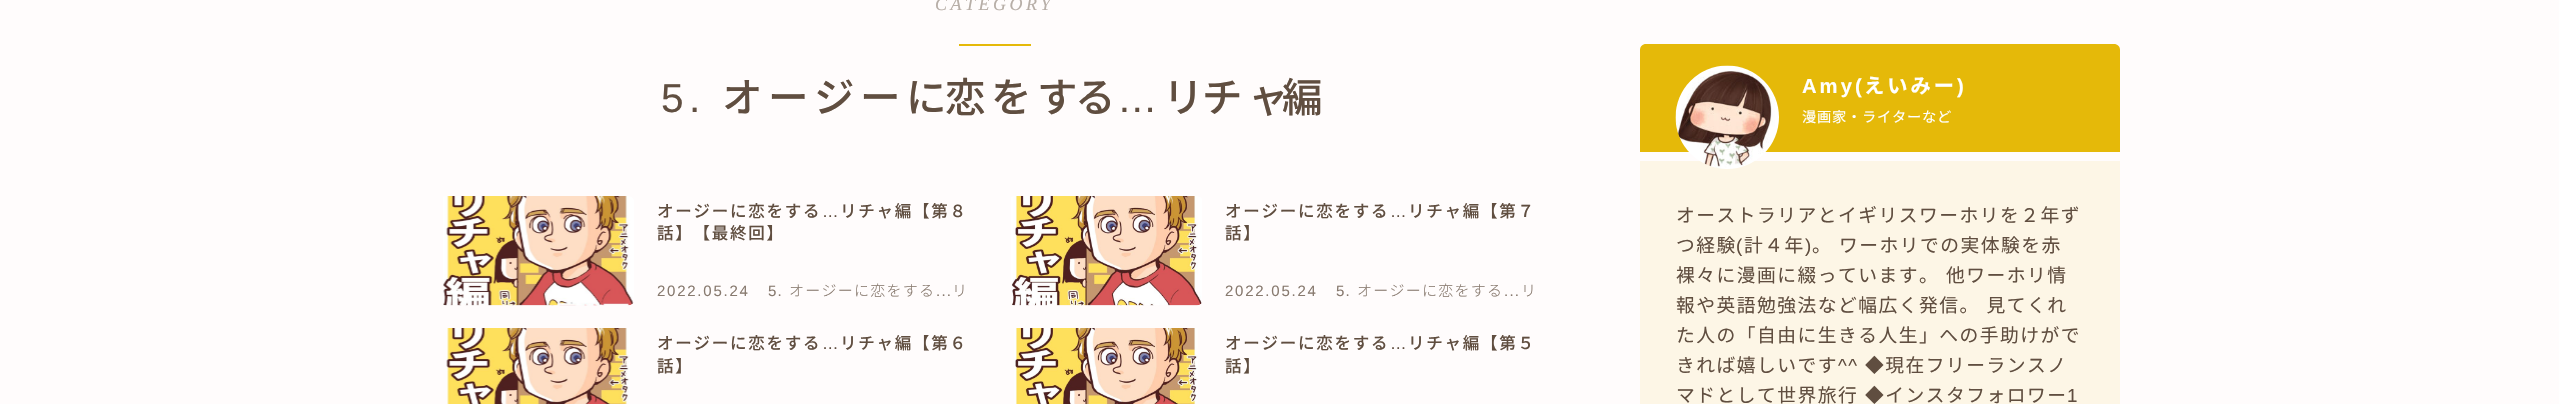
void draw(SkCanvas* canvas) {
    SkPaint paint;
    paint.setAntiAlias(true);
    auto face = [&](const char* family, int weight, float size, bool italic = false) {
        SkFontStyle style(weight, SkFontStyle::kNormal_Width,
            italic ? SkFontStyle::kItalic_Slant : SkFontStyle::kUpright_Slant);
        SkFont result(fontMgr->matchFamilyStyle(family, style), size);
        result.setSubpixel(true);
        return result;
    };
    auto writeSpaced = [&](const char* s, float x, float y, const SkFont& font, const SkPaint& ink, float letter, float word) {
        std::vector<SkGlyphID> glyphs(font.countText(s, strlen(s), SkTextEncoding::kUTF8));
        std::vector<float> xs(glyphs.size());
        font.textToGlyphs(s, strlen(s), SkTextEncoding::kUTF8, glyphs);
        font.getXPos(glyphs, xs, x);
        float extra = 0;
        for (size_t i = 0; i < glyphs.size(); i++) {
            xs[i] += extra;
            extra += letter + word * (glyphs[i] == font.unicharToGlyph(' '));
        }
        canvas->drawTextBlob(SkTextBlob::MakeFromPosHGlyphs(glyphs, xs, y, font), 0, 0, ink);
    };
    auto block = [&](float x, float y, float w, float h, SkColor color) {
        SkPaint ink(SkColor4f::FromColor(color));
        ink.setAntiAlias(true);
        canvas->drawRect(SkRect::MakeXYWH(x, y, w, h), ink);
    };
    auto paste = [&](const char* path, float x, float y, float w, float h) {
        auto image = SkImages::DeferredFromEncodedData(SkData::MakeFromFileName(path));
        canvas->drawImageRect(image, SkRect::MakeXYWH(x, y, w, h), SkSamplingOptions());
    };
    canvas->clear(SkColorSetRGB(255, 252, 252));
    auto kFont1 = face("Liberation Serif", 400, 18, true);
    paint.setColor(SkColorSetRGB(183, 174, 167));
    writeSpaced("CATEGORY", 935, 10, kFont1, paint, 3.5f, 0);
    block(959, 44, 72, 2, SkColorSetRGB(229, 185, 9));
    auto kFont2 = face("Liberation Sans", 400, 40.5f);
    paint.setColor(SkColorSetRGB(96, 78, 64));
    writeSpaced("5.", 661, 112, kFont2, paint, 5.5f, 0);
    auto kFont3 = face("Noto Sans CJK JP", 500, 40.5f);
    writeSpaced("オージーに", 722, 112, kFont3, paint, 5.5f, 0);
    writeSpaced("恋をす", 945, 112, kFont3, paint, 5.5f, 0);
    writeSpaced("る", 1075, 112, kFont3, paint, 5.5f, 0);
    writeSpaced("…", 1117, 112, kFont2, paint, 5.5f, 0);
    writeSpaced("リ", 1163, 112, kFont3, paint, 5.5f, 0);
    writeSpaced("チャ", 1202, 112, kFont3, paint, 5.5f, 0);
    writeSpaced("編", 1282, 112, kFont3, paint, 5.5f, 0);
    paste("pic1.png", 443, 196, 191, 110);
    auto kFont4 = face("Noto Sans CJK JP", 500, 16.5f);
    writeSpaced("オージーに恋をする", 657, 217, kFont4, paint, 1.75f, 0);
    auto kFont5 = face("Liberation Sans", 400, 16.5f);
    writeSpaced("…", 822, 217, kFont5, paint, 1.75f, 0);
    writeSpaced("リチャ編【第８", 840, 217, kFont4, paint, 1.75f, 0);
    writeSpaced("話】【最終回】", 657, 239, kFont4, paint, 1.75f, 0);
    auto kFont6 = face("Liberation Sans", 400, 15);
    paint.setColor(SkColorSetRGB(136, 122, 111));
    writeSpaced("2022.05.24", 657, 296, kFont6, paint, 1.75f, 0);
    writeSpaced("5.", 768, 296, kFont6, paint, 1.25f, 0);
    auto kFont7 = face("Noto Sans CJK JP", 300, 15);
    writeSpaced("オージーに恋をする", 789, 296, kFont7, paint, 1.25f, 0);
    writeSpaced("...", 936, 296, kFont6, paint, 1.25f, 0);
    writeSpaced("リ", 952, 296, kFont7, paint, 1.25f, 0);
    paste("pic2.png", 1011, 196, 191, 110);
    paint.setColor(SkColorSetRGB(96, 78, 64));
    writeSpaced("オージーに恋をする", 1225, 217, kFont4, paint, 1.75f, 0);
    writeSpaced("…", 1390, 217, kFont5, paint, 1.75f, 0);
    writeSpaced("リチャ編【第７", 1408, 217, kFont4, paint, 1.75f, 0);
    writeSpaced("話】", 1225, 239, kFont4, paint, 1.75f, 0);
    paint.setColor(SkColorSetRGB(136, 122, 111));
    writeSpaced("2022.05.24", 1225, 296, kFont6, paint, 1.75f, 0);
    writeSpaced("5.", 1336, 296, kFont6, paint, 1.25f, 0);
    writeSpaced("オージーに恋をする", 1357, 296, kFont7, paint, 1.25f, 0);
    writeSpaced("...", 1504, 296, kFont6, paint, 1.25f, 0);
    writeSpaced("リ", 1521, 296, kFont7, paint, 1.25f, 0);
    paste("pic3.png", 446, 328, 184, 76);
    paint.setColor(SkColorSetRGB(96, 78, 64));
    writeSpaced("オージーに恋をする", 657, 349, kFont4, paint, 1.75f, 0);
    writeSpaced("…", 822, 349, kFont5, paint, 1.75f, 0);
    writeSpaced("リチャ編【第６", 840, 349, kFont4, paint, 1.75f, 0);
    writeSpaced("話】", 657, 372, kFont4, paint, 1.75f, 0);
    paste("pic4.png", 1014, 328, 184, 76);
    writeSpaced("オージーに恋をする", 1225, 349, kFont4, paint, 1.75f, 0);
    writeSpaced("…", 1390, 349, kFont5, paint, 1.75f, 0);
    writeSpaced("リチャ編【第５", 1408, 349, kFont4, paint, 1.75f, 0);
    writeSpaced("話】", 1225, 372, kFont4, paint, 1.75f, 0);
    paint.setColor(SkColorSetRGB(229, 185, 9));
    canvas->drawPath(SkPathBuilder().moveTo(1646, 44).lineTo(2114, 44).cubicTo(2117.5f, 44, 2120, 46.5f, 2120, 50).lineTo(2120, 152).lineTo(1640, 152).lineTo(1640, 50).cubicTo(1640, 46.5f, 1642.5f, 44, 1646, 44).close().detach(), paint);
    block(1640, 161, 480, 243, SkColorSetRGB(253, 246, 230));
    paste("pic5.png", 1675, 65, 104, 104);
    auto kFont8 = face("Liberation Sans", 700, 20.25f);
    paint.setColor(SK_ColorWHITE);
    writeSpaced("Amy(", 1802, 93, kFont8, paint, 3, 0);
    auto kFont9 = face("Noto Sans CJK JP", 700, 20.25f);
    writeSpaced("えいみー", 1864, 93, kFont9, paint, 3, 0);
    writeSpaced(")", 1957, 93, kFont8, paint, 3, 0);
    auto kFont10 = face("Noto Sans CJK JP", 400, 14.25f);
    writeSpaced("漫画家・ライターなど", 1802, 122, kFont10, paint, 0.75f, 0);
    auto kFont11 = face("Noto Sans CJK JP", 400, 18.75f);
    paint.setColor(SkColorSetRGB(96, 78, 64));
    writeSpaced("オーストラリアとイギリスワーホリを２年ず", 1676, 222, kFont11, paint, 1.5f, 0);
    writeSpaced("つ経験", 1676, 252, kFont11, paint, 1.5f, 0);
    auto kFont12 = face("Liberation Sans", 400, 18.75f);
    writeSpaced("(", 1736, 252, kFont12, paint, 1.5f, 0);
    writeSpaced("計４年", 1744, 252, kFont11, paint, 1.5f, 0);
    writeSpaced(")", 1805, 252, kFont12, paint, 1.5f, 0);
    writeSpaced("。 ワーホリでの実体験を赤", 1812, 252, kFont11, paint, 1.5f, 1);
    writeSpaced("裸々に漫画に綴っています。 他ワーホリ情", 1676, 282, kFont11, paint, 1.5f, 1);
    writeSpaced("報や英語勉強法など幅広く発信。 見てくれ", 1676, 312, kFont11, paint, 1.5f, 1);
    writeSpaced("た人の「自由に生きる人生」への手助けがで", 1676, 342, kFont11, paint, 1.5f, 0);
    writeSpaced("きれば嬉しいです", 1676, 372, kFont11, paint, 1.5f, 0);
    writeSpaced("^^", 1838, 372, kFont12, paint, 1.5f, 0);
    writeSpaced("◆現在フリーランスノ", 1865, 372, kFont11, paint, 1.5f, 0);
    writeSpaced("マドとして世界旅行 ◆インスタフォロワー", 1676, 402, kFont11, paint, 1.5f, 1);
    writeSpaced("1", 2067, 402, kFont12, paint, 1.5f, 0);
}
